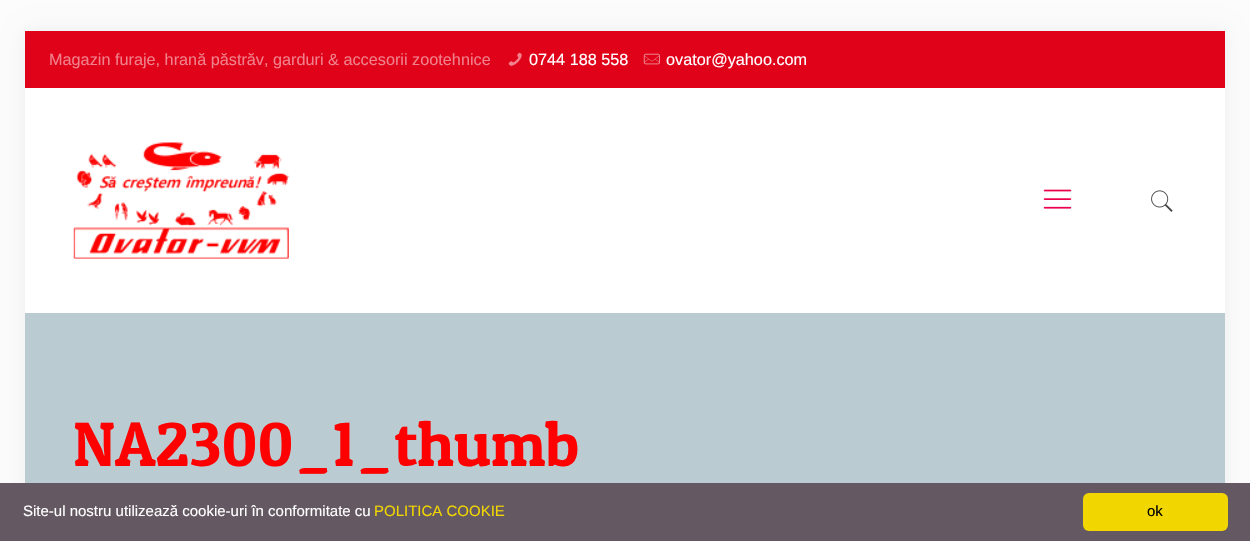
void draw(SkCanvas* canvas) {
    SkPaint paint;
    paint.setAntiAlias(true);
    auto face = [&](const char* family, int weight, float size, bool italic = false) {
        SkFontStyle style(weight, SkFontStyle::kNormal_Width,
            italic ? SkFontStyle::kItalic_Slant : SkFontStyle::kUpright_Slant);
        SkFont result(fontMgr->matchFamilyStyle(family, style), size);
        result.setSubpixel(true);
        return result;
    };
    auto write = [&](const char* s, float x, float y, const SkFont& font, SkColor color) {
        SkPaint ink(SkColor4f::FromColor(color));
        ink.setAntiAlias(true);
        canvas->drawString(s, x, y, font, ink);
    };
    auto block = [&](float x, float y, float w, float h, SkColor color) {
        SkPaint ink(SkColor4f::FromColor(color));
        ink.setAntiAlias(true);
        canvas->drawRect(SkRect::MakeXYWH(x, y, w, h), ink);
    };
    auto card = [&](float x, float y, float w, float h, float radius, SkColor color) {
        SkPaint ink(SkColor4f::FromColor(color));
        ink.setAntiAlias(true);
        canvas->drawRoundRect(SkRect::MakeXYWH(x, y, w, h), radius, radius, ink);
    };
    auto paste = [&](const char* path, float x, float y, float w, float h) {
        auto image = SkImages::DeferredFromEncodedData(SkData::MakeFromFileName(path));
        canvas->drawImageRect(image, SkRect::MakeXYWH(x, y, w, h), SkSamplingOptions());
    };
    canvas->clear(SkColorSetRGB(252, 252, 252));
    paint.setColor(SkColorSetARGB(15, 0, 0, 0));
    paint.setMaskFilter(SkMaskFilter::MakeBlur(kNormal_SkBlurStyle, 9.5f));
    canvas->drawRect(SkRect::MakeXYWH(25, 31, 1200, 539), paint);
    paint.setMaskFilter(nullptr);
    block(25, 313, 1200, 170, SkColorSetRGB(186, 203, 210));
    block(25, 31, 1200, 57, SkColorSetRGB(224, 2, 25));
    auto kFont1 = face("Liberation Sans", 400, 16.25f);
    write("Magazin furaje, hrană păstrăv, garduri & accesorii zootehnice", 49, 65, kFont1, SkColorSetRGB(240, 129, 140));
    paste("pic1.png", 508, 52, 14, 14);
    write("0744 188 558", 529, 65, kFont1, SK_ColorWHITE);
    paste("pic2.png", 643, 53, 17, 12);
    write("ovator@yahoo.com", 666, 65, kFont1, SK_ColorWHITE);
    block(25, 88, 1200, 225, SK_ColorWHITE);
    paste("pic3.png", 73, 142, 216, 117);
    paste("pic4.png", 1043, 189, 29, 20);
    paste("pic5.png", 1151, 190, 22, 22);
    auto kFont2 = face("Patua One", 400, 62.5f);
    write("NA2300_1_thumb", 73, 466, kFont2, SkColorSetRGB(255, 0, 0));
    block(0, 483, 1250, 58, SkColorSetRGB(100, 88, 98));
    auto kFont3 = face("Liberation Sans", 400, 15);
    write("Site-ul nostru utilizează cookie-uri în conformitate cu", 23, 516, kFont3, SK_ColorWHITE);
    write("POLITICA COOKIE", 374, 516, kFont3, SkColorSetRGB(241, 214, 0));
    card(1083, 493, 145, 38, 6, SkColorSetRGB(241, 214, 0));
    write("ok", 1147, 516, kFont3, SK_ColorBLACK);
}
